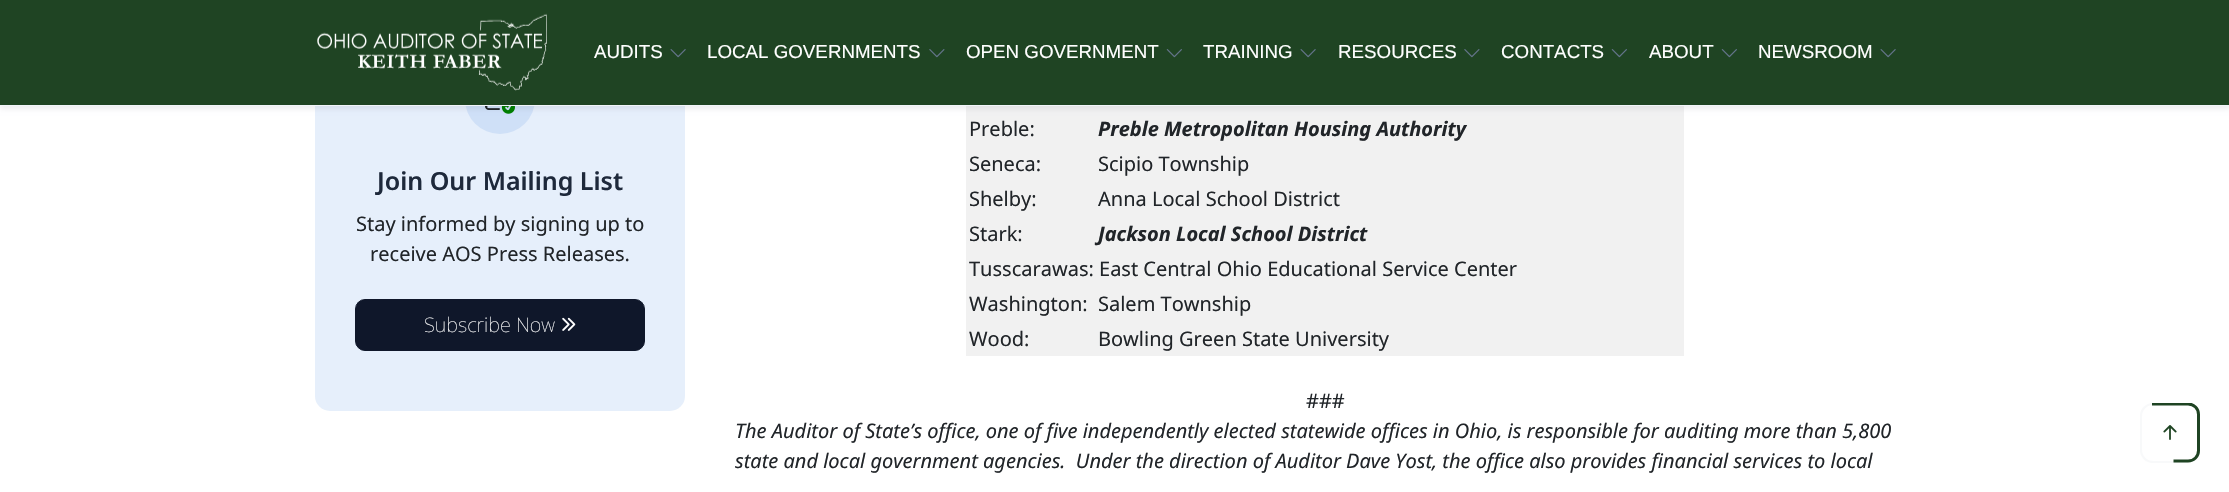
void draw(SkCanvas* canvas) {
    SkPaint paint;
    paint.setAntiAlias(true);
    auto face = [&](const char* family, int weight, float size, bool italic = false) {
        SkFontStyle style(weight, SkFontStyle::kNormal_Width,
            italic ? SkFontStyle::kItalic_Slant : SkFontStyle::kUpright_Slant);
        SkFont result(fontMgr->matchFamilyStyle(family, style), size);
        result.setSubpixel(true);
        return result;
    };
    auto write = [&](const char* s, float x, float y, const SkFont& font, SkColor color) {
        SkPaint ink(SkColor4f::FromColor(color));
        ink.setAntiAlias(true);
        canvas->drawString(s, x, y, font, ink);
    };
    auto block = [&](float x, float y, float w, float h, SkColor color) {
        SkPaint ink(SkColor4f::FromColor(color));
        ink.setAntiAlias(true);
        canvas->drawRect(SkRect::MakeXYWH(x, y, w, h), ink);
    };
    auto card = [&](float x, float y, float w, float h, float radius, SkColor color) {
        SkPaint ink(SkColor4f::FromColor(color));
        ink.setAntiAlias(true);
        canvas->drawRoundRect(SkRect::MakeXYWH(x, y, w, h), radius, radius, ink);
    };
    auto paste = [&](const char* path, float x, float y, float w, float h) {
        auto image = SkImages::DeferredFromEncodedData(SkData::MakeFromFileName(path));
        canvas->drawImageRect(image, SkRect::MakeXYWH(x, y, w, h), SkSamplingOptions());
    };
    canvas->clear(SK_ColorWHITE);
    card(315, 24, 370, 387, 15, SkColorSetRGB(230, 239, 251));
    paint.setColor(SkColorSetRGB(207, 224, 247));
    canvas->drawCircle(500, 99, 35, paint);
    paste("pic5.png", 485, 106, 30, 8);
    block(966, 106, 718, 5, SkColorSetRGB(241, 241, 241));
    block(966, 111, 718, 35, SkColorSetRGB(241, 241, 241));
    paint.setColor(SkColorSetARGB(18, 2, 6, 23));
    paint.setMaskFilter(SkMaskFilter::MakeBlur(kNormal_SkBlurStyle, 2.5f));
    canvas->drawRect(SkRect::MakeXYWH(0, 3, 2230, 106), paint);
    paint.setMaskFilter(nullptr);
    block(0, 0, 2229, 105, SkColorSetRGB(31, 68, 35));
    block(0, 105, 2229, 1, SkColorSetRGB(241, 245, 249));
    paste("pic1.png", 317, 13, 230, 78);
    auto kFont1 = face("Liberation Sans", 400, 18.75f);
    write("AUDITS", 594, 58, kFont1, SK_ColorWHITE);
    paste("pic2.png", 670, 49, 16, 9);
    write("LOCAL GOVERNMENTS", 707, 58, kFont1, SK_ColorWHITE);
    paste("pic3.png", 929, 49, 16, 9);
    write("OPEN GOVERNMENT", 966, 58, kFont1, SK_ColorWHITE);
    paste("pic4.png", 1166, 49, 16, 9);
    write("TRAINING", 1203, 58, kFont1, SK_ColorWHITE);
    paste("pic2.png", 1300, 49, 16, 9);
    write("RESOURCES", 1338, 58, kFont1, SK_ColorWHITE);
    paste("pic3.png", 1464, 49, 16, 9);
    write("CONTACTS", 1501, 58, kFont1, SK_ColorWHITE);
    paste("pic4.png", 1611, 49, 16, 9);
    write("ABOUT", 1649, 58, kFont1, SK_ColorWHITE);
    paste("pic4.png", 1721, 49, 16, 9);
    write("NEWSROOM", 1758, 58, kFont1, SK_ColorWHITE);
    paste("pic2.png", 1880, 49, 16, 9);
    auto kFont2 = face("Noto Sans", 600, 25);
    write("Join Our Mailing List", 377, 190, kFont2, SkColorSetRGB(30, 41, 59));
    auto kFont3 = face("Noto Sans", 400, 20);
    write("Stay informed by signing up to", 356, 231, kFont3, SkColorSetRGB(33, 37, 41));
    write("receive AOS Press Releases.", 370, 261, kFont3, SkColorSetRGB(33, 37, 41));
    paint.setColor(SkColorSetRGB(15, 23, 42));
    canvas->drawRoundRect(SkRect::MakeXYWH(355.5f, 299.5f, 289, 51), 9.5f, 9.5f, paint);
    paint.setStyle(SkPaint::kStroke_Style);
    paint.setStrokeWidth(1);
    canvas->drawRoundRect(SkRect::MakeXYWH(355.5f, 299.5f, 289, 51), 9.5f, 9.5f, paint);
    auto kFont4 = face("Noto Sans", 100, 20);
    write("Subscribe Now", 424, 332, kFont4, SK_ColorWHITE);
    paste("pic6.png", 562, 317, 14, 14);
    write("Preble:", 969, 136, kFont3, SkColorSetRGB(33, 37, 41));
    auto kFont5 = face("Noto Sans", 700, 20, true);
    write("Preble Metropolitan Housing Authority", 1098, 136, kFont5, SkColorSetRGB(33, 37, 41));
    block(966, 146, 718, 35, SkColorSetRGB(241, 241, 241));
    write("Seneca:", 969, 171, kFont3, SkColorSetRGB(33, 37, 41));
    write("Scipio Township", 1098, 171, kFont3, SkColorSetRGB(33, 37, 41));
    block(966, 181, 718, 35, SkColorSetRGB(241, 241, 241));
    write("Shelby:", 969, 206, kFont3, SkColorSetRGB(33, 37, 41));
    write("Anna Local School District", 1098, 206, kFont3, SkColorSetRGB(33, 37, 41));
    block(966, 216, 718, 35, SkColorSetRGB(241, 241, 241));
    write("Stark:", 969, 241, kFont3, SkColorSetRGB(33, 37, 41));
    write("Jackson Local School District", 1098, 241, kFont5, SkColorSetRGB(33, 37, 41));
    block(966, 251, 718, 35, SkColorSetRGB(241, 241, 241));
    write("Tusscarawas: East Central Ohio Educational Service Center", 969, 276, kFont3, SkColorSetRGB(33, 37, 41));
    block(966, 286, 718, 35, SkColorSetRGB(241, 241, 241));
    write("Washington:", 969, 311, kFont3, SkColorSetRGB(33, 37, 41));
    write("Salem Township", 1098, 311, kFont3, SkColorSetRGB(33, 37, 41));
    block(966, 321, 718, 35, SkColorSetRGB(241, 241, 241));
    write("Wood:", 969, 346, kFont3, SkColorSetRGB(33, 37, 41));
    write("Bowling Green State University", 1098, 346, kFont3, SkColorSetRGB(33, 37, 41));
    write("###", 1306, 408, kFont3, SkColorSetRGB(33, 37, 41));
    auto kFont6 = face("Noto Sans", 400, 20, true);
    write("The Auditor of State’s office, one of five independently elected statewide offices in Ohio, is responsible for auditing more than 5,800", 735, 438, kFont6, SkColorSetRGB(33, 37, 41));
    write("state and local government agencies.  Under the direction of Auditor Dave Yost, the office also provides financial services to local", 735, 468, kFont6, SkColorSetRGB(33, 37, 41));
    paint.setStrokeWidth(2);
    paint.setColor(SkColorSetRGB(248, 249, 250));
    canvas->drawRoundRect(SkRect::MakeXYWH(2141, 404, 58, 58), 12, 12, paint);
    canvas->save();
    canvas->clipRect(SkRect::MakeXYWH(2140, 403, 60, 60));
    paint.setStrokeWidth(3);
    paint.setColor(SkColorSetRGB(31, 68, 35));
    canvas->drawPath(SkPathBuilder().moveTo(2152, 404).lineTo(2188, 404).cubicTo(2194, 404, 2198.5f, 408.5f, 2198.5f, 414.5f).lineTo(2198.5f, 450.5f).cubicTo(2198.5f, 456.5f, 2194, 461, 2188, 461).lineTo(2173.5f, 461).detach(), paint);
    canvas->restore();
    paste("pic7.png", 2163, 425, 14, 15);
}
